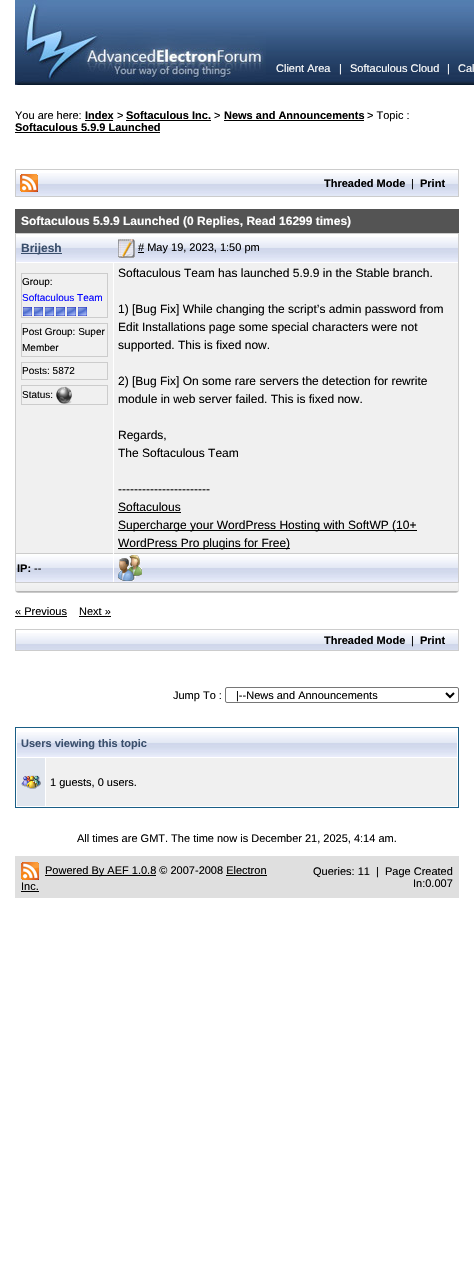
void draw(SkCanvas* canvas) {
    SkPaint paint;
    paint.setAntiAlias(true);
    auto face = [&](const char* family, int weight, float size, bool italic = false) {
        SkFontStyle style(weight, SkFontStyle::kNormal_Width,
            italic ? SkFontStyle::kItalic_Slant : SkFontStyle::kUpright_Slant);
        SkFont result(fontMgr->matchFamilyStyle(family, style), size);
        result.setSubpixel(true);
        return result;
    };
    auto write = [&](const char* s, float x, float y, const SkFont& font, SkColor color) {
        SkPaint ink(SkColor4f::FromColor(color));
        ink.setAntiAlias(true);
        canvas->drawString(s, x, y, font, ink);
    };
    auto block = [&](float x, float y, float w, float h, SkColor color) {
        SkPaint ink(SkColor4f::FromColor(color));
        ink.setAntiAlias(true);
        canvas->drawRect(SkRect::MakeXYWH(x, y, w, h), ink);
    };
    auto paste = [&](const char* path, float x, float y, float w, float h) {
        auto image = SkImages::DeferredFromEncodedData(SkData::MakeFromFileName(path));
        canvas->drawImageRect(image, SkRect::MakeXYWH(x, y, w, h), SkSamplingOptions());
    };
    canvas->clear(SK_ColorWHITE);
    paste("pic1.png", 266, 0, 208, 85);
    paste("pic2.png", 15, 0, 251, 85);
    auto kFont1 = face("Liberation Sans", 400, 11);
    write("Client Area", 276, 72, kFont1, SK_ColorWHITE);
    write("|", 339, 72, kFont1, SK_ColorWHITE);
    write("Softaculous Cloud", 350, 72, kFont1, SK_ColorWHITE);
    write("|", 447, 72, kFont1, SK_ColorWHITE);
    write("Cal", 458, 72, kFont1, SK_ColorWHITE);
    write("You are here:", 15, 119, kFont1, SK_ColorBLACK);
    auto kFont2 = face("Liberation Sans", 700, 11);
    write("Index", 85, 119, kFont2, SK_ColorBLACK);
    block(85, 120, 28, 1, SK_ColorBLACK);
    write(">", 117, 119, kFont1, SK_ColorBLACK);
    write("Softaculous Inc.", 126, 119, kFont2, SK_ColorBLACK);
    block(126, 120, 85, 1, SK_ColorBLACK);
    write(">", 214, 119, kFont1, SK_ColorBLACK);
    write("News and Announcements", 224, 119, kFont2, SK_ColorBLACK);
    block(224, 120, 140, 1, SK_ColorBLACK);
    write("> Topic :", 367, 119, kFont1, SK_ColorBLACK);
    write("Softaculous 5.9.9 Launched", 15, 131, kFont2, SK_ColorBLACK);
    block(15, 132, 145, 1, SK_ColorBLACK);
    paint.setStyle(SkPaint::kStroke_Style);
    paint.setStrokeWidth(1);
    paint.setColor(SkColorSetRGB(204, 204, 204));
    canvas->drawRect(SkRect::MakeXYWH(15.5f, 169.5f, 443, 27), paint);
    paste("pic3.png", 16, 173, 69, 23);
    paste("pic4.png", 20, 174, 18, 18);
    paste("pic5.png", 85, 173, 373, 23);
    write("Threaded Mode", 324, 187, kFont2, SK_ColorBLACK);
    write("|", 411, 187, kFont1, SK_ColorBLACK);
    write("Print", 420, 187, kFont2, SK_ColorBLACK);
    block(15, 209, 444, 24, SkColorSetRGB(84, 84, 84));
    auto kFont3 = face("Liberation Sans", 700, 12);
    write("Softaculous 5.9.9 Launched (0 Replies, Read 16299 times)", 21, 225, kFont3, SK_ColorWHITE);
    canvas->drawRect(SkRect::MakeXYWH(15.5f, 233.5f, 443, 349), paint);
    paste("pic6.png", 16, 237, 97, 25);
    block(21, 253, 41, 1, SkColorSetRGB(58, 79, 108));
    write("Brijesh", 21, 252, kFont3, SkColorSetRGB(58, 79, 108));
    paste("pic7.png", 113, 237, 345, 25);
    paste("pic8.png", 118, 239, 17, 19);
    block(138, 252, 6, 1, SK_ColorBLACK);
    write("# May 19, 2023, 1:50 pm", 138, 251, kFont1, SK_ColorBLACK);
    block(16, 263, 97, 290, SkColorSetRGB(240, 240, 240));
    canvas->drawRect(SkRect::MakeXYWH(21.5f, 273.5f, 86, 44), paint);
    auto kFont4 = face("Liberation Sans", 400, 10);
    write("Group:", 22, 285, kFont4, SK_ColorBLACK);
    write("Softaculous Team", 22, 301, kFont4, SkColorSetRGB(0, 0, 255));
    paste("pic9.png", 23, 307, 9, 9);
    paste("pic9.png", 34, 307, 9, 9);
    paste("pic9.png", 45, 307, 9, 9);
    paste("pic9.png", 56, 307, 9, 9);
    paste("pic9.png", 67, 307, 9, 9);
    paste("pic9.png", 78, 307, 9, 9);
    canvas->drawRect(SkRect::MakeXYWH(21.5f, 323.5f, 86, 33), paint);
    write("Post Group: Super", 22, 335, kFont4, SK_ColorBLACK);
    write("Member", 22, 351, kFont4, SK_ColorBLACK);
    canvas->drawRect(SkRect::MakeXYWH(21.5f, 362.5f, 86, 17), paint);
    write("Posts: 5872", 22, 374, kFont4, SK_ColorBLACK);
    canvas->drawRect(SkRect::MakeXYWH(21.5f, 385.5f, 86, 19), paint);
    write("Status:", 22, 398, kFont4, SK_ColorBLACK);
    paste("pic10.png", 56, 386, 16, 18);
    block(114, 263, 344, 290, SkColorSetRGB(240, 240, 240));
    auto kFont5 = face("Liberation Sans", 400, 12);
    write("Softaculous Team has launched 5.9.9 in the Stable branch.", 118, 277, kFont5, SK_ColorBLACK);
    write("1) [Bug Fix] While changing the script’s admin password from", 118, 313, kFont5, SK_ColorBLACK);
    write("Edit Installations page some special characters were not", 118, 331, kFont5, SK_ColorBLACK);
    write("supported. This is fixed now.", 118, 349, kFont5, SK_ColorBLACK);
    write("2) [Bug Fix] On some rare servers the detection for rewrite", 118, 385, kFont5, SK_ColorBLACK);
    write("module in web server failed. This is fixed now.", 118, 403, kFont5, SK_ColorBLACK);
    write("Regards,", 118, 439, kFont5, SK_ColorBLACK);
    write("The Softaculous Team", 118, 457, kFont5, SK_ColorBLACK);
    write("-----------------------", 118, 493, kFont5, SK_ColorBLACK);
    write("Softaculous", 118, 511, kFont5, SK_ColorBLACK);
    block(118, 512, 63, 1, SK_ColorBLACK);
    block(118, 530, 299, 1, SK_ColorBLACK);
    write("Supercharge your WordPress Hosting with SoftWP (10+", 118, 529, kFont5, SK_ColorBLACK);
    block(118, 548, 172, 1, SK_ColorBLACK);
    write("WordPress Pro plugins for Free)", 118, 547, kFont5, SK_ColorBLACK);
    paste("pic11.png", 16, 554, 97, 28);
    block(16, 553, 442, 1, SkColorSetRGB(204, 204, 204));
    write("IP:", 17, 572, kFont2, SK_ColorBLACK);
    write("--", 34, 572, kFont1, SK_ColorBLACK);
    paste("pic12.png", 114, 554, 344, 28);
    block(113, 553, 1, 1, SK_ColorWHITE);
    paste("pic13.png", 118, 555, 24, 26);
    paste("pic14.png", 15, 583, 444, 10);
    write("« Previous", 15, 615, kFont1, SK_ColorBLACK);
    block(15, 616, 52, 1, SK_ColorBLACK);
    write("Next »", 79, 615, kFont1, SK_ColorBLACK);
    block(79, 616, 32, 1, SK_ColorBLACK);
    canvas->drawRect(SkRect::MakeXYWH(15.5f, 629.5f, 443, 21), paint);
    paste("pic15.png", 16, 633, 442, 17);
    write("Threaded Mode", 324, 644, kFont2, SK_ColorBLACK);
    write("|", 411, 644, kFont1, SK_ColorBLACK);
    write("Print", 420, 644, kFont2, SK_ColorBLACK);
    write("Jump To :", 173, 699, kFont1, SK_ColorBLACK);
    paint.setColor(SkColorSetRGB(118, 118, 118));
    canvas->drawRoundRect(SkRect::MakeXYWH(225.5f, 687.5f, 233, 15), 1.5f, 1.5f, paint);
    paint.setStrokeWidth(2);
    paint.setColor(SK_ColorBLACK);
    canvas->drawPath(SkPathBuilder().moveTo(446, 693).lineTo(450, 697).lineTo(454, 693).detach(), paint);
    write("|--News and Announcements", 236, 699, kFont1, SK_ColorBLACK);
    paint.setStrokeWidth(1);
    paint.setColor(SkColorSetRGB(26, 94, 134));
    canvas->drawRect(SkRect::MakeXYWH(15.5f, 727.5f, 443, 80), paint);
    paste("pic16.png", 17, 732, 440, 25);
    write("Users viewing this topic", 21, 747, kFont2, SkColorSetRGB(58, 79, 108));
    block(17, 758, 28, 48, SkColorSetRGB(225, 230, 238));
    paste("pic17.png", 21, 775, 20, 14);
    block(46, 758, 411, 48, SkColorSetRGB(240, 240, 240));
    write("1 guests, 0 users.", 50, 786, kFont1, SK_ColorBLACK);
    write("All times are GMT. The time now is December 21, 2025, 4:14 am.", 77, 842, kFont1, SK_ColorBLACK);
    block(15, 856, 444, 42, SkColorSetRGB(223, 223, 223));
    paste("pic18.png", 21, 862, 18, 18);
    block(45, 875, 111, 1, SK_ColorBLACK);
    write("Powered By AEF 1.0.8 © 2007-2008 Electron", 45, 874, kFont1, SK_ColorBLACK);
    write("Inc.", 21, 890, kFont1, SK_ColorBLACK);
    block(226, 875, 41, 1, SK_ColorBLACK);
    block(21, 891, 18, 1, SK_ColorBLACK);
    write("Queries: 11  |  Page Created", 313, 875, kFont1, SK_ColorBLACK);
    write("In:0.007", 413, 887, kFont1, SK_ColorBLACK);
}
